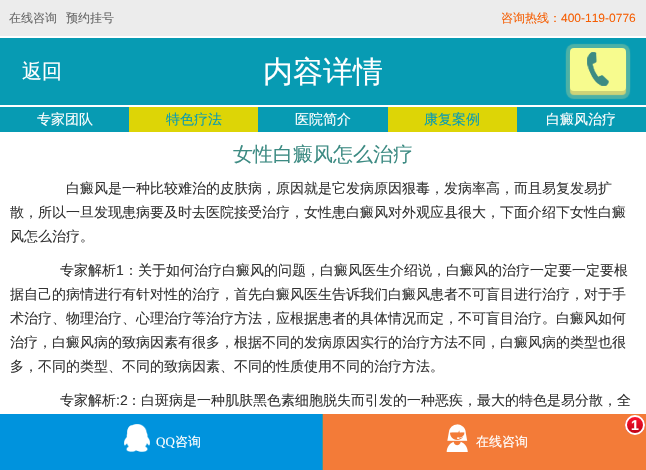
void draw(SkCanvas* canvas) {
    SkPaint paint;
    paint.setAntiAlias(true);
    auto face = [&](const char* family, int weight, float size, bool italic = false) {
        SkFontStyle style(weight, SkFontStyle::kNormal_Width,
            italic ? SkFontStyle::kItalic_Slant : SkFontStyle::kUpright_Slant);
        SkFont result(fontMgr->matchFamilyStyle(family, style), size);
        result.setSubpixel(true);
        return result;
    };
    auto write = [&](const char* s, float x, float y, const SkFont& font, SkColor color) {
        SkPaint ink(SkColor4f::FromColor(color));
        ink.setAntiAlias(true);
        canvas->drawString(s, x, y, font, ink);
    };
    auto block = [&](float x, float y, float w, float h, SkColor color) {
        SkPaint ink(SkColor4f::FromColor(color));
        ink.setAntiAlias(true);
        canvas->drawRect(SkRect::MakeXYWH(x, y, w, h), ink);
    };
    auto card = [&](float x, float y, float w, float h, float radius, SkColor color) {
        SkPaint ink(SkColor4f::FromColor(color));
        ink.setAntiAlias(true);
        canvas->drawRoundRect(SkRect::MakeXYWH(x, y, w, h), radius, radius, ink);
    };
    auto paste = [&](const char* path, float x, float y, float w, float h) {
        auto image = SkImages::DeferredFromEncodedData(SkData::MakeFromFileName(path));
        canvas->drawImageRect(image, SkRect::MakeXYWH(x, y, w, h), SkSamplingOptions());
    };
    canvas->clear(SK_ColorWHITE);
    block(0, 0, 646, 36, SkColorSetRGB(236, 236, 236));
    auto kFont1 = face("WenQuanYi Zen Hei", 500, 12);
    write("在线咨询", 9, 22, kFont1, SkColorSetRGB(102, 102, 102));
    write("预约挂号", 66, 22, kFont1, SkColorSetRGB(102, 102, 102));
    write("咨询热线：", 501, 22, kFont1, SkColorSetRGB(246, 93, 1));
    auto kFont2 = face("Liberation Sans", 400, 12);
    write("400-119-0776", 561, 22, kFont2, SkColorSetRGB(246, 93, 1));
    block(0, 38, 646, 67, SkColorSetRGB(7, 155, 179));
    auto kFont3 = face("WenQuanYi Zen Hei", 500, 20);
    write("返回", 22, 78, kFont3, SK_ColorWHITE);
    auto kFont4 = face("WenQuanYi Zen Hei", 500, 30);
    write("内容详情", 263, 82, kFont4, SK_ColorWHITE);
    paint.setColor(SkColorSetRGB(77, 177, 166));
    paint.setMaskFilter(SkMaskFilter::MakeBlur(kNormal_SkBlurStyle, 0.5f));
    canvas->drawRoundRect(SkRect::MakeXYWH(566, 48, 64, 51), 8, 8, paint);
    paint.setMaskFilter(nullptr);
    paint.setMaskFilter(SkMaskFilter::MakeBlur(kNormal_SkBlurStyle, 0.5f));
    canvas->drawRoundRect(SkRect::MakeXYWH(566, 44, 64, 51), 8, 8, paint);
    paint.setMaskFilter(nullptr);
    paint.setColor(SkColorSetRGB(207, 211, 119));
    paint.setMaskFilter(SkMaskFilter::MakeBlur(kNormal_SkBlurStyle, 0.5f));
    canvas->drawRoundRect(SkRect::MakeXYWH(570, 52, 56, 43), 4, 4, paint);
    paint.setMaskFilter(nullptr);
    card(570, 48, 56, 43, 4, SkColorSetRGB(247, 251, 142));
    paste("pic1.png", 587, 52, 22, 34);
    block(0, 107, 129, 25, SkColorSetRGB(7, 155, 179));
    auto kFont5 = face("WenQuanYi Zen Hei", 500, 14);
    write("专家团队", 37, 124, kFont5, SK_ColorWHITE);
    block(129, 107, 129, 25, SkColorSetRGB(221, 213, 6));
    write("特色疗法", 166, 124, kFont5, SkColorSetRGB(7, 155, 179));
    block(258, 107, 130, 25, SkColorSetRGB(7, 155, 179));
    write("医院简介", 295, 124, kFont5, SK_ColorWHITE);
    block(388, 107, 129, 25, SkColorSetRGB(221, 213, 6));
    write("康复案例", 424, 124, kFont5, SkColorSetRGB(7, 155, 179));
    block(517, 107, 129, 25, SkColorSetRGB(7, 155, 179));
    write("白癜风治疗", 546, 124, kFont5, SK_ColorWHITE);
    write("女性白癜风怎么治疗", 233, 161, kFont3, SkColorSetRGB(61, 139, 131));
    write("白癜风是一种比较难治的皮肤病，原因就是它发病原因狠毒，发病率高，而且易复发易扩", 66, 193, kFont5, SkColorSetRGB(51, 51, 51));
    write("散，所以一旦发现患病要及时去医院接受治疗，女性患白癜风对外观应县很大，下面介绍下女性白癜", 10, 217, kFont5, SkColorSetRGB(51, 51, 51));
    write("风怎么治疗。", 10, 241, kFont5, SkColorSetRGB(51, 51, 51));
    write("专家解析", 60, 275, kFont5, SkColorSetRGB(51, 51, 51));
    auto kFont6 = face("Liberation Sans", 400, 14);
    write("1", 116, 275, kFont6, SkColorSetRGB(51, 51, 51));
    write("：关于如何治疗白癜风的问题，白癜风医生介绍说，白癜风的治疗一定要一定要根", 124, 275, kFont5, SkColorSetRGB(51, 51, 51));
    write("据自己的病情进行有针对性的治疗，首先白癜风医生告诉我们白癜风患者不可盲目进行治疗，对于手", 10, 299, kFont5, SkColorSetRGB(51, 51, 51));
    write("术治疗、物理治疗、心理治疗等治疗方法，应根据患者的具体情况而定，不可盲目治疗。白癜风如何", 10, 323, kFont5, SkColorSetRGB(51, 51, 51));
    write("治疗，白癜风病的致病因素有很多，根据不同的发病原因实行的治疗方法不同，白癜风病的类型也很", 10, 347, kFont5, SkColorSetRGB(51, 51, 51));
    write("多，不同的类型、不同的致病因素、不同的性质使用不同的治疗方法。", 10, 371, kFont5, SkColorSetRGB(51, 51, 51));
    write("专家解析", 60, 405, kFont5, SkColorSetRGB(51, 51, 51));
    write(":2", 116, 405, kFont6, SkColorSetRGB(51, 51, 51));
    write("：白斑病是一种肌肤黑色素细胞脱失而引发的一种恶疾，最大的特色是易分散，全", 127, 405, kFont5, SkColorSetRGB(51, 51, 51));
    block(322, 414, 1, 56, SkColorSetRGB(69, 149, 149));
    block(0, 414, 322, 56, SkColorSetRGB(0, 147, 221));
    paste("pic2.png", 124, 424, 26, 28);
    auto kFont7 = face("Liberation Serif", 400, 13);
    write("QQ", 156, 446, kFont7, SK_ColorWHITE);
    auto kFont8 = face("WenQuanYi Zen Hei", 500, 13);
    write("咨询", 175, 446, kFont8, SK_ColorWHITE);
    block(323, 414, 323, 56, SkColorSetRGB(243, 123, 56));
    paste("pic3.png", 446, 424, 22, 28);
    write("在线咨询", 476, 446, kFont8, SK_ColorWHITE);
    canvas->save();
    canvas->clipPath(SkPathBuilder().moveTo(635, 415).cubicTo(640.5f, 415, 645, 419.5f, 645, 425).cubicTo(645, 430.5f, 640.5f, 435, 635, 435).cubicTo(629.5f, 435, 625, 430.5f, 625, 425).cubicTo(625, 419.5f, 629.5f, 415, 635, 415).close().detach(), true);
    {
        const SkColor colors[] = {SkColorSetRGB(253, 20, 46), SkColorSetRGB(191, 1, 22)};
        const float stops[] = {0, 1};
        const SkPoint ends[] = {{635, 417}, {635, 433}};
        paint.setShader(SkGradientShader::MakeLinear(ends, colors, stops, 2, SkTileMode::kClamp));
        paint.setAlpha(255);
    }
    canvas->drawRect(SkRect::MakeXYWH(625, 417, 20, 16), paint);
    canvas->restore();
    paint.setStyle(SkPaint::kStroke_Style);
    paint.setStrokeWidth(2);
    paint.setShader(nullptr);
    paint.setColor(SK_ColorWHITE);
    canvas->drawCircle(635, 425, 9, paint);
    auto kFont9 = face("Liberation Sans", 700, 14);
    write("1", 631, 430, kFont9, SK_ColorWHITE);
}
